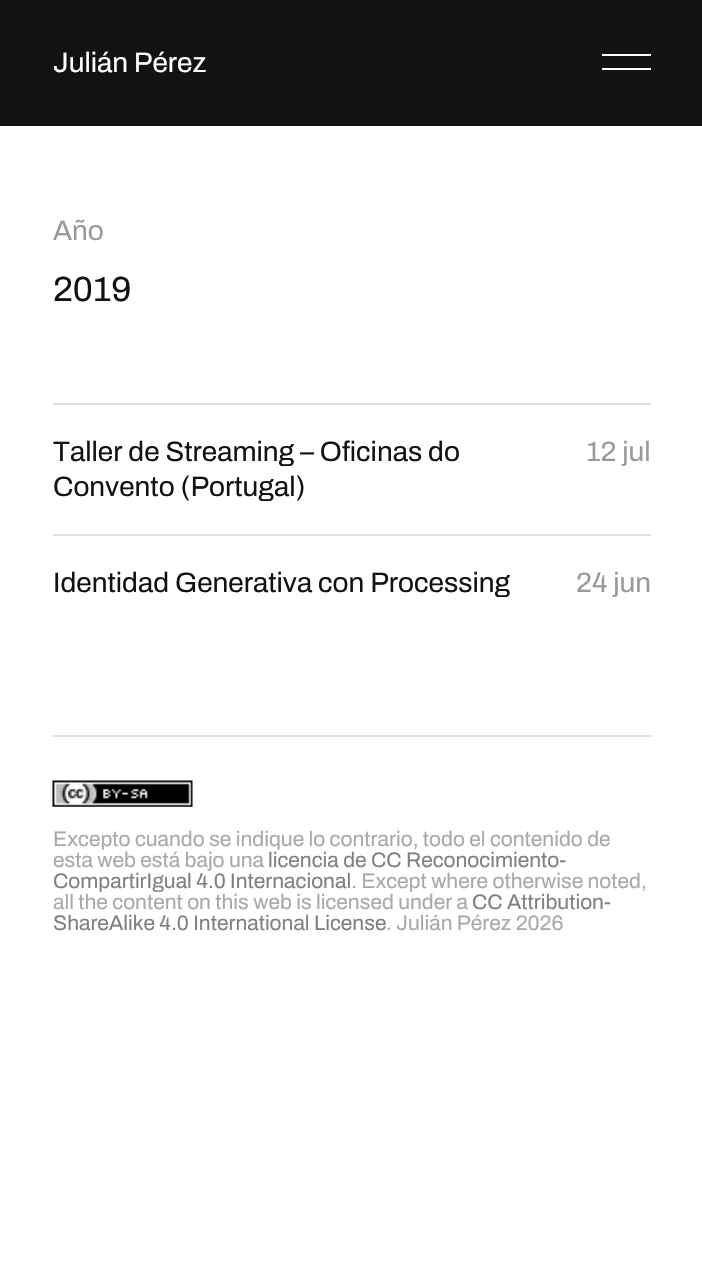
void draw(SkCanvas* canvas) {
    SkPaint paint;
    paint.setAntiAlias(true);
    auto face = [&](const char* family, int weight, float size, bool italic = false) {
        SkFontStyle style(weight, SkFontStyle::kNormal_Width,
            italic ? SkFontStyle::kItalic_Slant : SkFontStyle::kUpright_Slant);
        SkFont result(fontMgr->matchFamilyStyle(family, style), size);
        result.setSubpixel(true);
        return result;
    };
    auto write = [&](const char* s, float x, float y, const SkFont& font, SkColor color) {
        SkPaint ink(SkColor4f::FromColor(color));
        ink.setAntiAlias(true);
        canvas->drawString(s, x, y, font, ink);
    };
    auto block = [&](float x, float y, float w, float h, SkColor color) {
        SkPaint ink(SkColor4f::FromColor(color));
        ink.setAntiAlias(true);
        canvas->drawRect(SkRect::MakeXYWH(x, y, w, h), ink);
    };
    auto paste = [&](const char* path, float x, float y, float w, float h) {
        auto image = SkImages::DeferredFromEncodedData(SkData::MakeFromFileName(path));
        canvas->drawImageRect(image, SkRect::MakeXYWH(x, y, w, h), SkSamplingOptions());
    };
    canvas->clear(SK_ColorWHITE);
    block(0, 0, 702, 126, SkColorSetRGB(18, 18, 18));
    auto kFont1 = face("Archivo", 600, 28);
    write("Julián Pérez", 53, 72, kFont1, SK_ColorWHITE);
    block(602, 54, 49, 2, SK_ColorWHITE);
    block(602, 68, 49, 2, SK_ColorWHITE);
    write("Año", 53, 240, kFont1, SkColorSetRGB(153, 153, 155));
    auto kFont2 = face("Archivo", 600, 35);
    write("2019", 53, 301, kFont2, SkColorSetRGB(18, 18, 18));
    block(53, 403, 598, 2, SkColorSetRGB(223, 223, 224));
    write("Taller de Streaming – Oficinas do", 53, 461, kFont1, SkColorSetRGB(18, 18, 18));
    write("Convento (Portugal)", 53, 496, kFont1, SkColorSetRGB(18, 18, 18));
    write("12 jul", 586, 461, kFont1, SkColorSetRGB(153, 153, 155));
    block(53, 534, 598, 2, SkColorSetRGB(223, 223, 224));
    write("Identidad Generativa con Processing", 53, 592, kFont1, SkColorSetRGB(18, 18, 18));
    write("24 jun", 576, 592, kFont1, SkColorSetRGB(153, 153, 155));
    block(53, 735, 598, 2, SkColorSetRGB(223, 223, 224));
    paste("pic1.png", 52, 780, 141, 27);
    auto kFont3 = face("Archivo", 600, 21);
    write("Excepto cuando se indique lo contrario, todo el contenido de", 53, 846, kFont3, SkColorSetRGB(169, 169, 169));
    write("esta web está bajo una", 53, 867, kFont3, SkColorSetRGB(169, 169, 169));
    write("licencia de CC Reconocimiento-", 268, 867, kFont3, SkColorSetRGB(128, 128, 128));
    write("CompartirIgual 4.0 Internacional", 53, 888, kFont3, SkColorSetRGB(128, 128, 128));
    write(". Except where otherwise noted,", 351, 888, kFont3, SkColorSetRGB(169, 169, 169));
    write("all the content on this web is licensed under a", 53, 909, kFont3, SkColorSetRGB(169, 169, 169));
    write("CC Attribution-", 472, 909, kFont3, SkColorSetRGB(128, 128, 128));
    write("ShareAlike 4.0 International License", 53, 930, kFont3, SkColorSetRGB(128, 128, 128));
    write(". Julián Pérez 2026", 386, 930, kFont3, SkColorSetRGB(169, 169, 169));
}
